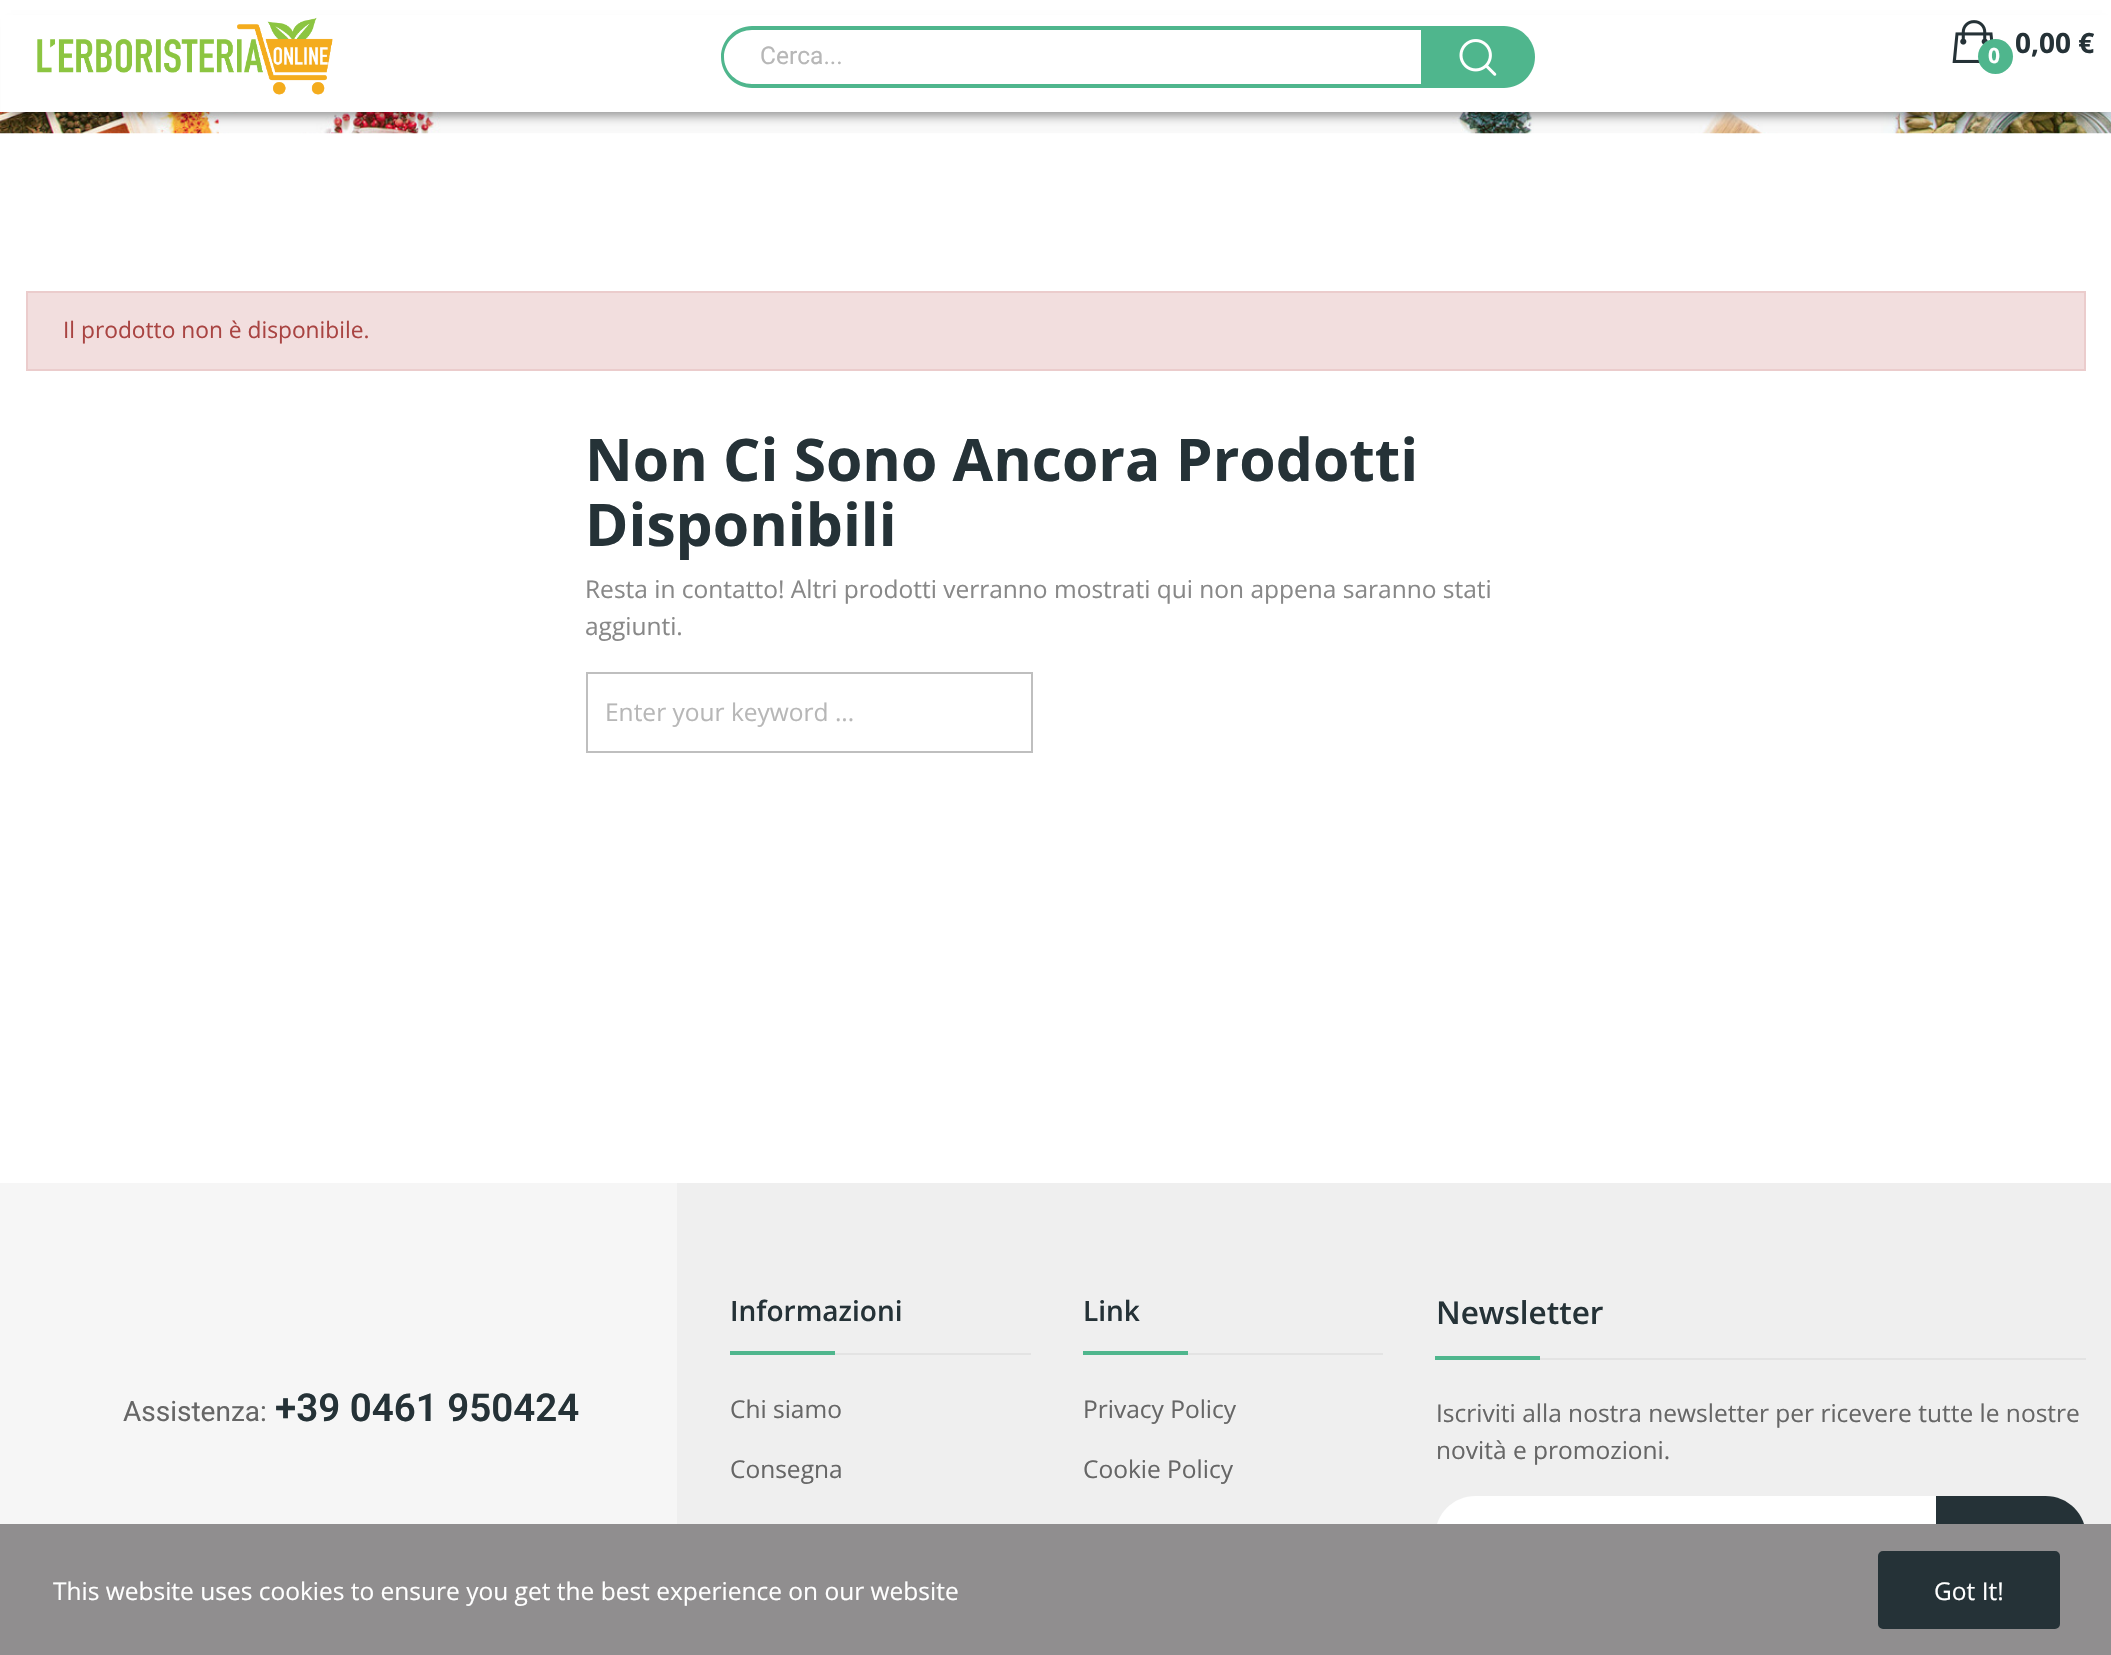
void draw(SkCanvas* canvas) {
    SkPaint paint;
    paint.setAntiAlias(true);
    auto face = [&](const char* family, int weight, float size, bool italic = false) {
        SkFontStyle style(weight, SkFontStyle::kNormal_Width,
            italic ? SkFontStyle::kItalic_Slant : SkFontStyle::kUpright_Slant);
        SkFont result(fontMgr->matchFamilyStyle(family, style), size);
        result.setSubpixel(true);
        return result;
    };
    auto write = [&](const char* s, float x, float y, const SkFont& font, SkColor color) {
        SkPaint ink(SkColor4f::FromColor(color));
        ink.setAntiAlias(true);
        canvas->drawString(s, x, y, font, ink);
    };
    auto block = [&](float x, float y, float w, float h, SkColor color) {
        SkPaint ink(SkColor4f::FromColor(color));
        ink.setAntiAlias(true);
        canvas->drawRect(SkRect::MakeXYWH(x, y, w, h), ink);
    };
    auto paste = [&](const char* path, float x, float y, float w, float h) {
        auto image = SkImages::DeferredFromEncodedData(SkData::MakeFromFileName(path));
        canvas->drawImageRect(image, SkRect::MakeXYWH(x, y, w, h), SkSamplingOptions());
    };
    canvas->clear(SK_ColorWHITE);
    paste("pic4.png", 0, 112, 2111, 22);
    paint.setColor(SkColorSetARGB(102, 0, 0, 0));
    paint.setMaskFilter(SkMaskFilter::MakeBlur(kNormal_SkBlurStyle, 5));
    canvas->drawRect(SkRect::MakeXYWH(11, 25, 2091, 91), paint);
    paint.setMaskFilter(nullptr);
    block(1, 15, 2110, 97, SK_ColorWHITE);
    paste("pic1.png", 37, 17, 296, 78);
    paint.setColor(SkColorSetRGB(79, 182, 141));
    canvas->drawPath(SkPathBuilder(SkPathFillType::kEvenOdd).moveTo(752, 26).lineTo(1421, 26).lineTo(1421, 88).lineTo(752, 88).cubicTo(735, 88, 721, 74, 721, 57).cubicTo(721, 40, 735, 26, 752, 26).close().moveTo(752, 30).lineTo(1421, 30).lineTo(1421, 84).lineTo(752, 84).cubicTo(737, 84, 724, 72, 724, 57).cubicTo(724, 42, 737, 30, 752, 30).close().detach(), paint);
    auto kFont1 = face("Roboto", 400, 24.5f);
    write("Cerca...", 760, 64, kFont1, SkColorSetRGB(183, 183, 183));
    canvas->drawPath(SkPathBuilder().moveTo(1421, 26).lineTo(1504, 26).cubicTo(1521, 26, 1535, 40, 1535, 57).cubicTo(1535, 74, 1521, 88, 1504, 88).lineTo(1421, 88).close().detach(), paint);
    paste("pic2.png", 1459, 39, 38, 37);
    paste("pic3.png", 1952, 20, 42, 43);
    canvas->drawCircle(1995.5f, 56.5f, 17.5f, paint);
    auto kFont2 = face("Open Sans", 700, 21);
    write("0", 1988, 63, kFont2, SK_ColorWHITE);
    auto kFont3 = face("Open Sans", 700, 28);
    write("0,00 €", 2015, 53, kFont3, SkColorSetRGB(37, 50, 55));
    paint.setColor(SkColorSetRGB(242, 222, 222));
    canvas->drawRect(SkRect::MakeXYWH(27, 292, 2058, 78), paint);
    paint.setStyle(SkPaint::kStroke_Style);
    paint.setStrokeWidth(2);
    paint.setColor(SkColorSetRGB(235, 204, 204));
    canvas->drawRect(SkRect::MakeXYWH(27, 292, 2058, 78), paint);
    auto kFont4 = face("Open Sans", 400, 22.75f);
    write("Il prodotto non è disponibile.", 63, 338, kFont4, SkColorSetRGB(169, 68, 66));
    auto kFont5 = face("Open Sans", 700, 58.75f);
    write("Non Ci Sono Ancora Prodotti", 585, 481, kFont5, SkColorSetRGB(37, 50, 55));
    write("Disponibili", 585, 546, kFont5, SkColorSetRGB(37, 50, 55));
    auto kFont6 = face("Open Sans", 400, 24.5f);
    write("Resta in contatto! Altri prodotti verranno mostrati qui non appena saranno stati", 585, 598, kFont6, SkColorSetRGB(136, 136, 136));
    write("aggiunti.", 585, 635, kFont6, SkColorSetRGB(136, 136, 136));
    paint.setColor(SkColorSetRGB(191, 191, 191));
    canvas->drawRect(SkRect::MakeXYWH(587, 673, 445, 79), paint);
    write("Enter your keyword ...", 605, 721, kFont6, SkColorSetRGB(183, 183, 183));
    block(677, 1183, 1434, 341, SkColorSetRGB(239, 239, 239));
    block(0, 1183, 677, 341, SkColorSetRGB(246, 246, 246));
    auto kFont7 = face("Roboto", 400, 28);
    write("Assistenza:", 123, 1421, kFont7, SkColorSetRGB(102, 102, 102));
    auto kFont8 = face("Roboto", 600, 38.5f);
    write("+39 0461 950424", 275, 1421, kFont8, SkColorSetRGB(37, 50, 55));
    block(835, 1353, 196, 2, SkColorSetRGB(227, 227, 227));
    auto kFont9 = face("Open Sans", 600, 28);
    write("Informazioni", 730, 1321, kFont9, SkColorSetRGB(37, 50, 55));
    block(730, 1351, 105, 4, SkColorSetRGB(79, 182, 141));
    write("Chi siamo", 730, 1418, kFont6, SkColorSetRGB(102, 102, 102));
    write("Consegna", 730, 1478, kFont6, SkColorSetRGB(102, 102, 102));
    block(1188, 1353, 195, 2, SkColorSetRGB(227, 227, 227));
    write("Link", 1083, 1321, kFont9, SkColorSetRGB(37, 50, 55));
    block(1083, 1351, 105, 4, SkColorSetRGB(79, 182, 141));
    write("Privacy Policy", 1083, 1418, kFont6, SkColorSetRGB(102, 102, 102));
    write("Cookie Policy", 1083, 1478, kFont6, SkColorSetRGB(102, 102, 102));
    block(1540, 1358, 546, 2, SkColorSetRGB(227, 227, 227));
    auto kFont10 = face("Open Sans", 600, 31.5f);
    write("Newsletter", 1436, 1324, kFont10, SkColorSetRGB(37, 50, 55));
    block(1435, 1356, 105, 4, SkColorSetRGB(79, 182, 141));
    write("Iscriviti alla nostra newsletter per ricevere tutte le nostre", 1436, 1422, kFont6, SkColorSetRGB(102, 102, 102));
    write("novità e promozioni.", 1436, 1459, kFont6, SkColorSetRGB(102, 102, 102));
    paint.setStyle(SkPaint::kFill_Style);
    paint.setColor(SK_ColorWHITE);
    canvas->drawPath(SkPathBuilder().moveTo(1475.5f, 1496).lineTo(1936, 1496).lineTo(1936, 1577).lineTo(1475.5f, 1577).cubicTo(1453, 1577, 1435, 1559, 1435, 1536.5f).cubicTo(1435, 1514, 1453, 1496, 1475.5f, 1496).close().detach(), paint);
    paint.setColor(SkColorSetRGB(37, 50, 55));
    canvas->drawPath(SkPathBuilder().moveTo(1936, 1496).lineTo(2045.5f, 1496).cubicTo(2068, 1496, 2086, 1514, 2086, 1536.5f).cubicTo(2086, 1559, 2068, 1577, 2045.5f, 1577).lineTo(1936, 1577).close().detach(), paint);
    block(0, 1524, 2111, 131, SkColorSetRGB(144, 142, 143));
    write("This website uses cookies to ensure you get the best experience on our website", 53, 1600, kFont6, SK_ColorWHITE);
    canvas->drawRoundRect(SkRect::MakeXYWH(1880, 1553, 178, 74), 3, 3, paint);
    paint.setStyle(SkPaint::kStroke_Style);
    paint.setStrokeWidth(4);
    canvas->drawRoundRect(SkRect::MakeXYWH(1880, 1553, 178, 74), 3, 3, paint);
    write("Got It!", 1934, 1600, kFont6, SK_ColorWHITE);
}
